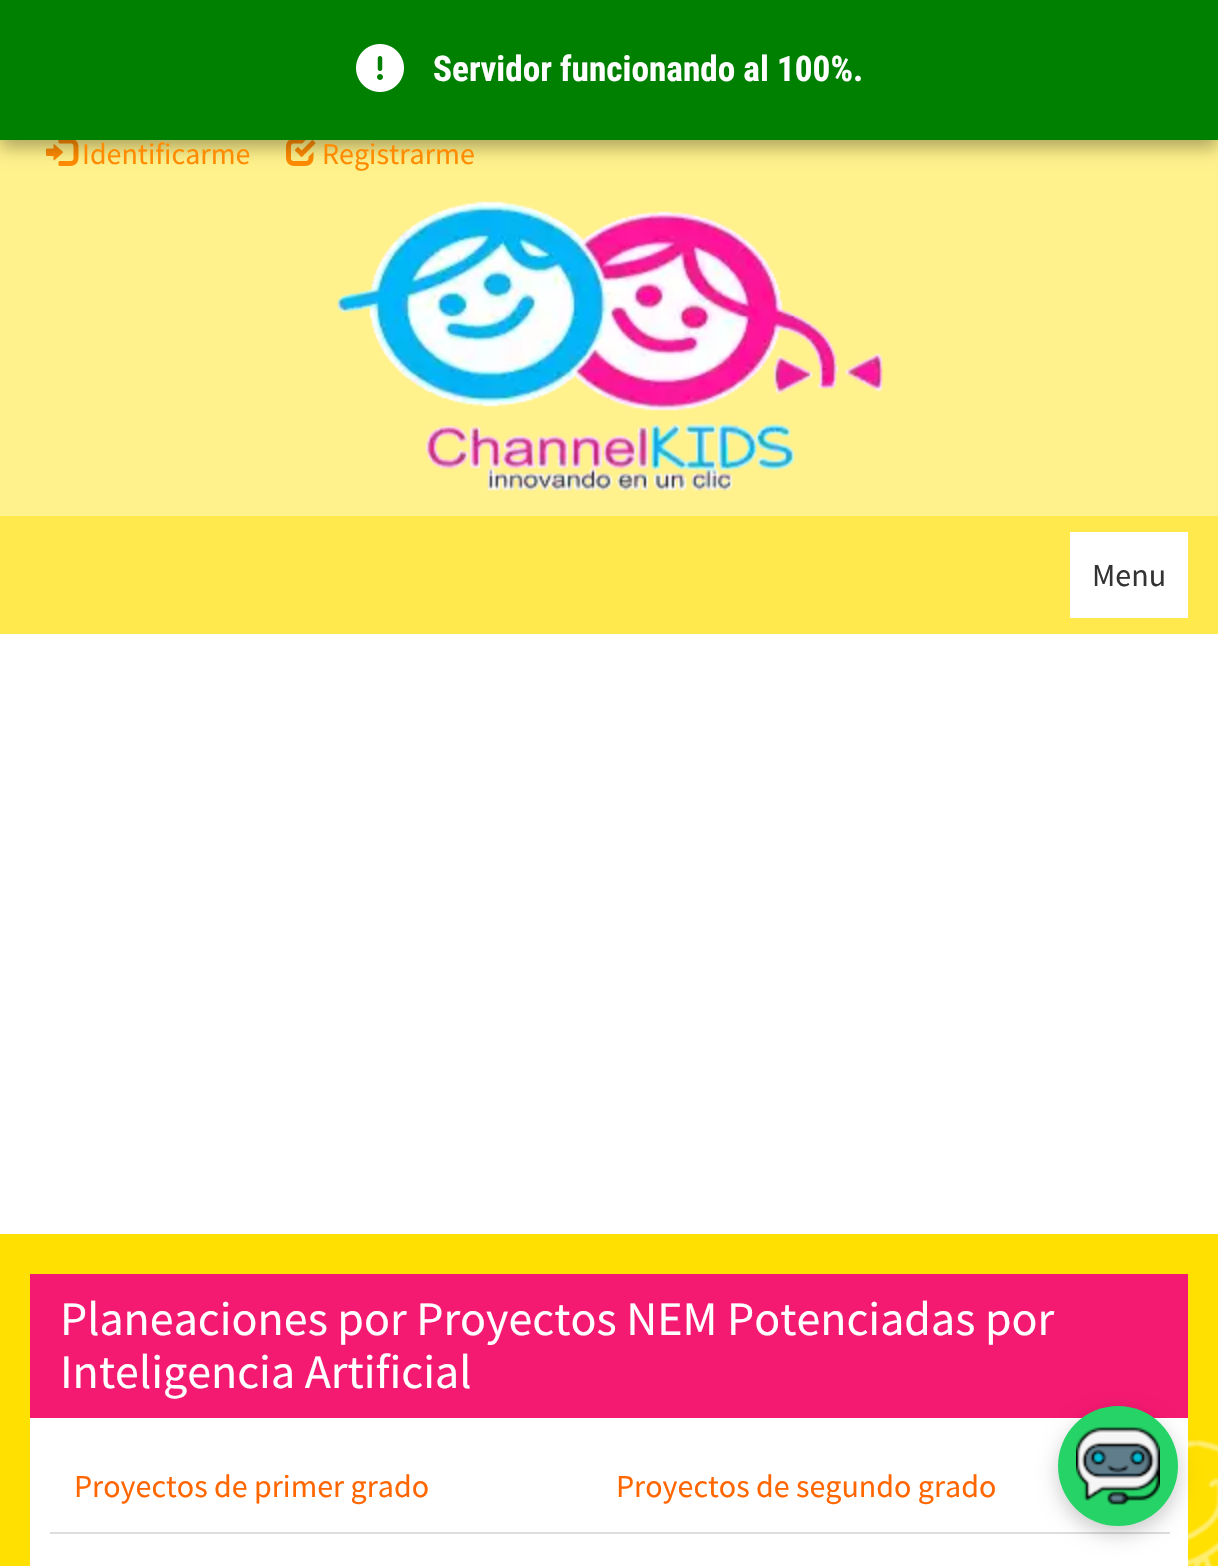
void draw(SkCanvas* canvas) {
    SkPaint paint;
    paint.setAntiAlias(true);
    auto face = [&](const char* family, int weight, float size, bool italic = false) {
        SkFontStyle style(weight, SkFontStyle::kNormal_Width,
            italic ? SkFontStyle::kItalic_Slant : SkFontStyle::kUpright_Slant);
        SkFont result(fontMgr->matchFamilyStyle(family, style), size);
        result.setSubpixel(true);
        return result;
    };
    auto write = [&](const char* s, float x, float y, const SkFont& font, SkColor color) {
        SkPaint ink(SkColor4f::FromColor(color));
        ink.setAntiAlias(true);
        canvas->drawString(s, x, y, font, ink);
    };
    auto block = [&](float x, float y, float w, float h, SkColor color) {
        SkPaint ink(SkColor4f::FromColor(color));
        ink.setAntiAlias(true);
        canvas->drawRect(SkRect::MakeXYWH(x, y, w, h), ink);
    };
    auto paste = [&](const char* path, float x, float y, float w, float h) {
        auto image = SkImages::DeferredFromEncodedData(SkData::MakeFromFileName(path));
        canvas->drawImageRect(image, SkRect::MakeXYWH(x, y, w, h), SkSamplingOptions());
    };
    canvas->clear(SK_ColorWHITE);
    block(0, 140, 1218, 376, SkColorSetRGB(255, 241, 139));
    paste("pic3.png", 46, 140, 33, 26);
    paste("pic4.png", 286, 140, 30, 26);
    paint.setColor(SkColorSetARGB(77, 0, 0, 0));
    paint.setMaskFilter(SkMaskFilter::MakeBlur(kNormal_SkBlurStyle, 8));
    canvas->drawRect(SkRect::MakeXYWH(0, 8, 1218, 140), paint);
    paint.setMaskFilter(nullptr);
    block(0, 0, 1218, 140, SkColorSetRGB(0, 128, 0));
    paste("pic1.png", 356, 44, 48, 48);
    auto kFont1 = face("Roboto Condensed", 700, 35.25f);
    write("Servidor funcionando al 100%.", 433, 81, kFont1, SK_ColorWHITE);
    block(0, 1234, 1218, 332, SkColorSetRGB(255, 224, 0));
    paste("pic6.png", 1188, 1439, 30, 127);
    block(30, 1418, 1158, 148, SK_ColorWHITE);
    block(30, 1274, 1158, 144, SkColorSetRGB(244, 25, 113));
    block(50, 1532, 1120, 2, SkColorSetRGB(221, 221, 221));
    paint.setColor(SkColorSetARGB(51, 0, 0, 0));
    paint.setMaskFilter(SkMaskFilter::MakeBlur(kNormal_SkBlurStyle, 10));
    canvas->drawRoundRect(SkRect::MakeXYWH(1058, 1414, 120, 120), 60, 60, paint);
    paint.setMaskFilter(nullptr);
    paint.setColor(SkColorSetRGB(37, 211, 102));
    canvas->drawCircle(1118, 1466, 60, paint);
    paste("pic2.png", 1076, 1426, 84, 80);
    auto kFont2 = face("Source Sans Pro", 400, 30);
    write("Identificarme", 82, 164, kFont2, SkColorSetRGB(255, 139, 0));
    write("Registrarme", 322, 164, kFont2, SkColorSetRGB(255, 139, 0));
    paste("pic5.png", 337, 201, 546, 290);
    block(0, 516, 1218, 118, SkColorSetRGB(255, 233, 77));
    block(1070, 532, 118, 86, SK_ColorWHITE);
    auto kFont3 = face("Source Sans Pro", 400, 32);
    write("Menu", 1092, 586, kFont3, SkColorSetRGB(51, 51, 51));
    auto kFont4 = face("Source Sans Pro", 400, 48);
    write("Planeaciones por Proyectos NEM Potenciadas por", 60, 1335, kFont4, SK_ColorWHITE);
    write("Inteligencia Artificial", 60, 1388, kFont4, SK_ColorWHITE);
    write("Proyectos de primer grado", 74, 1497, kFont3, SkColorSetRGB(255, 102, 0));
    write("Proyectos de segundo grado", 616, 1497, kFont3, SkColorSetRGB(255, 102, 0));
}
